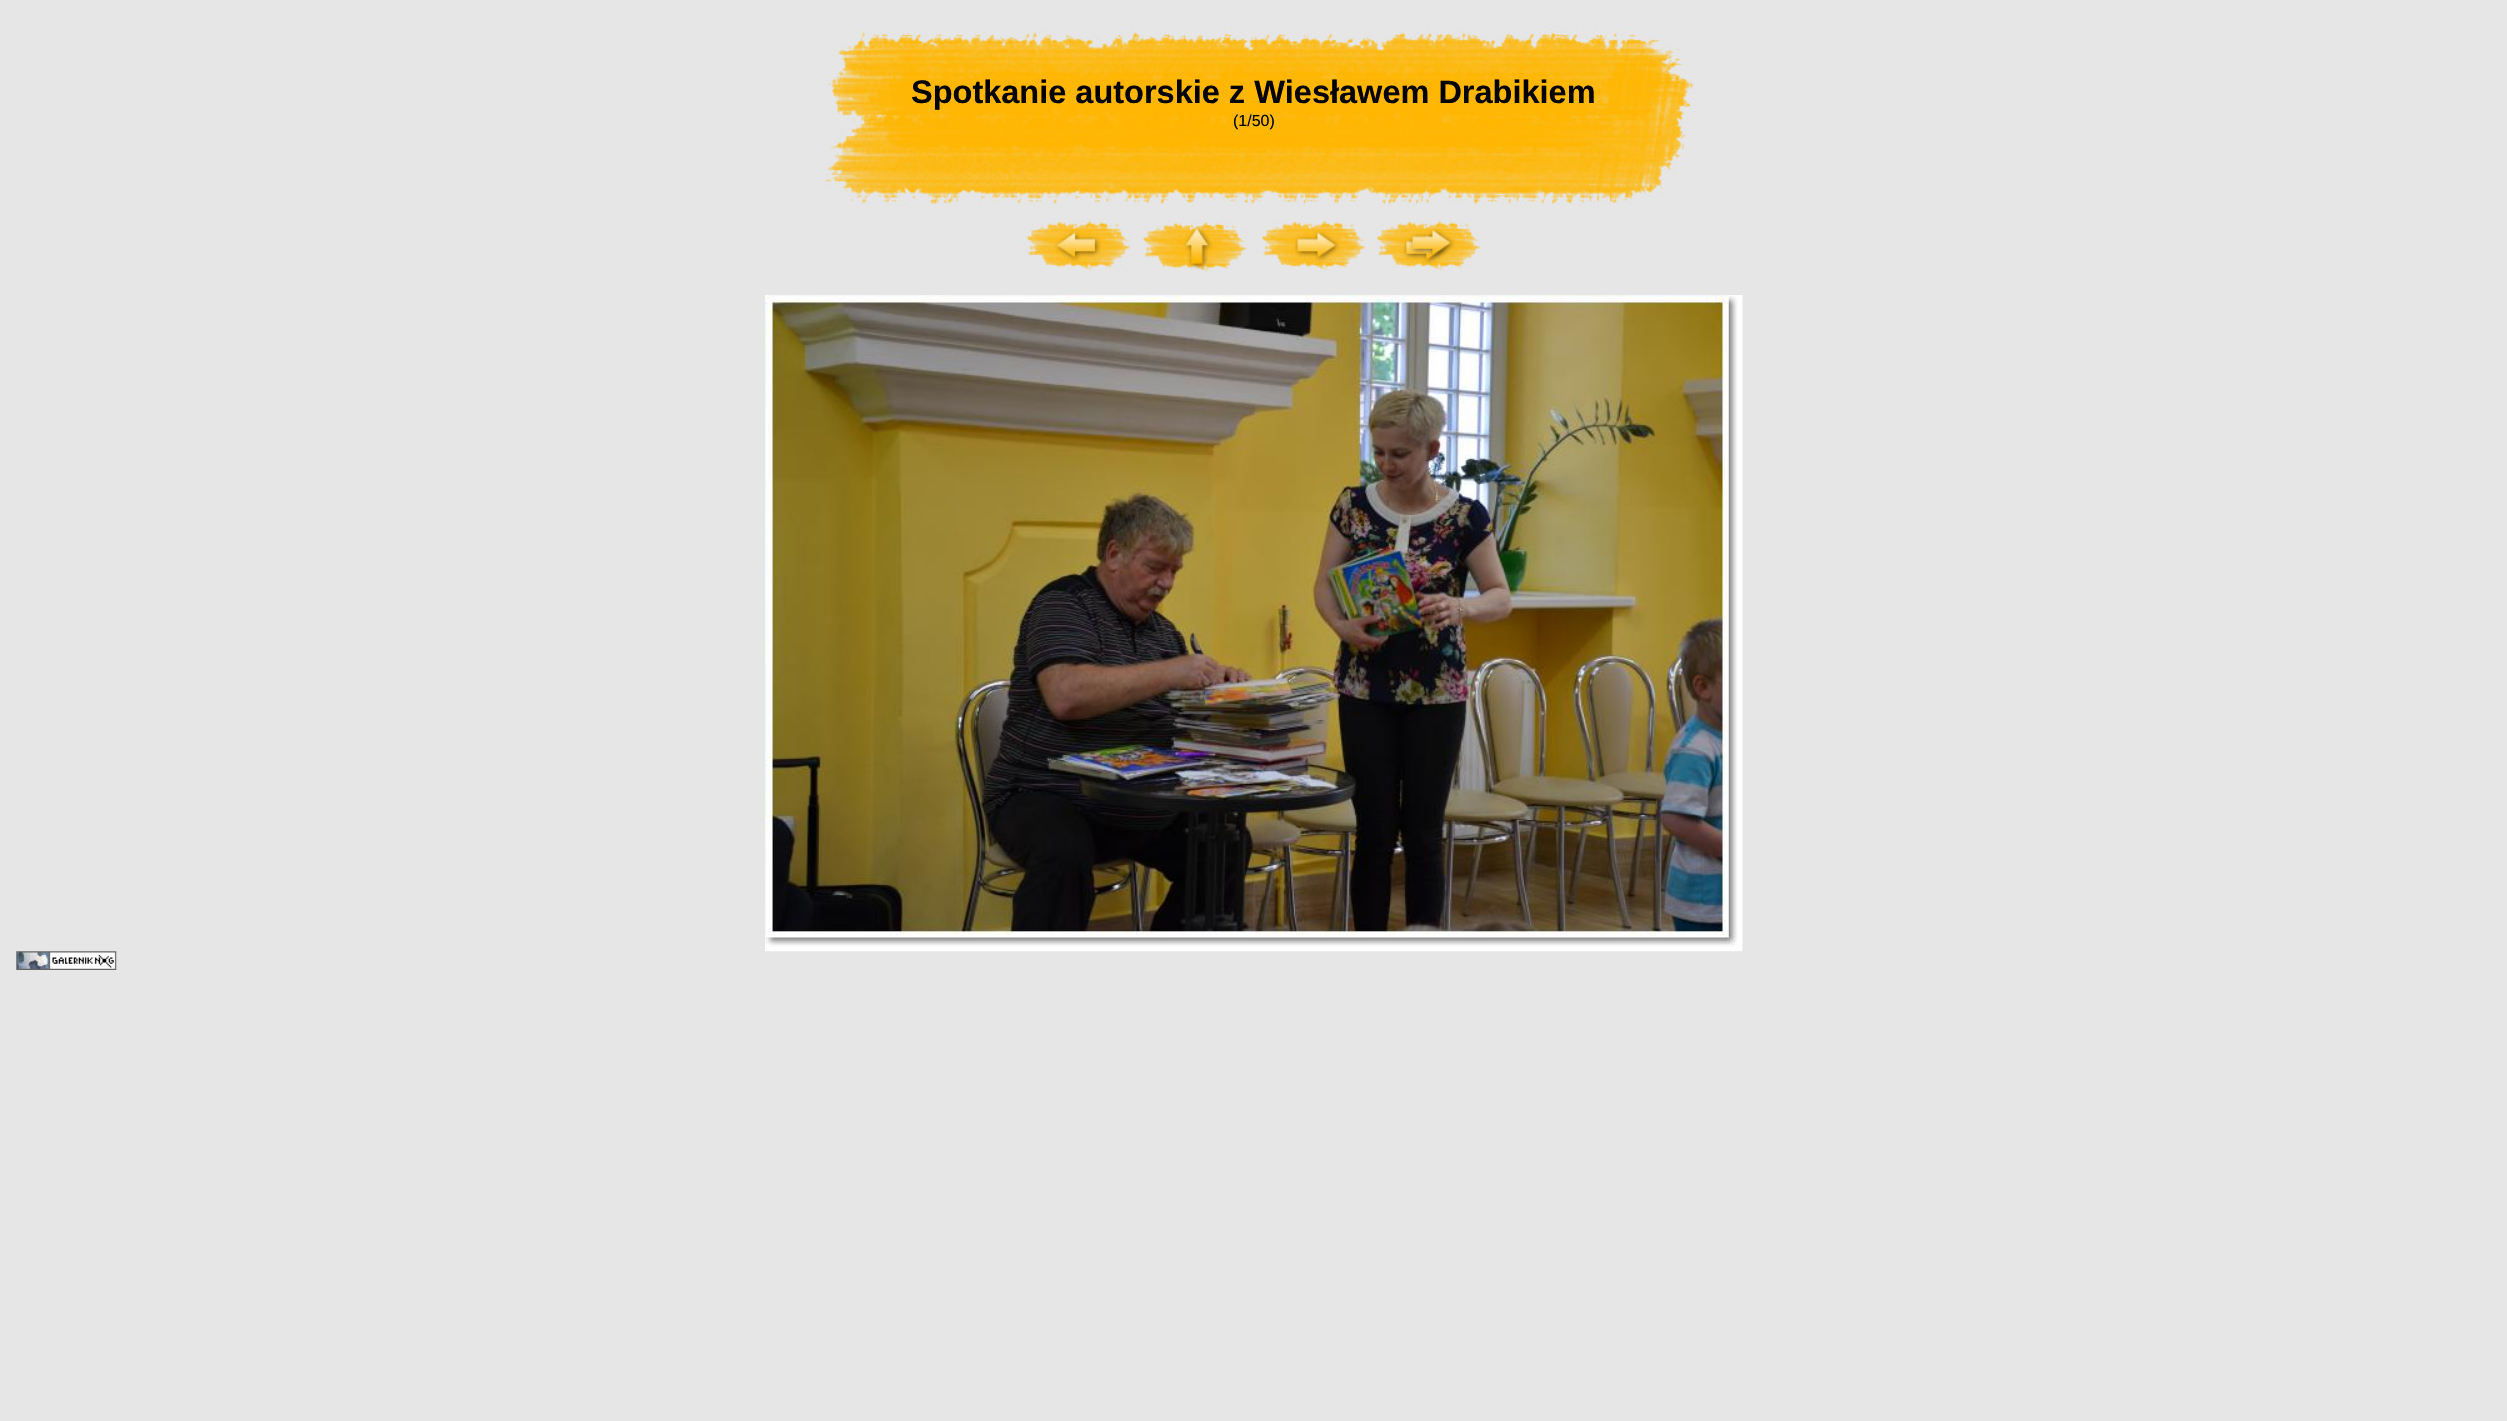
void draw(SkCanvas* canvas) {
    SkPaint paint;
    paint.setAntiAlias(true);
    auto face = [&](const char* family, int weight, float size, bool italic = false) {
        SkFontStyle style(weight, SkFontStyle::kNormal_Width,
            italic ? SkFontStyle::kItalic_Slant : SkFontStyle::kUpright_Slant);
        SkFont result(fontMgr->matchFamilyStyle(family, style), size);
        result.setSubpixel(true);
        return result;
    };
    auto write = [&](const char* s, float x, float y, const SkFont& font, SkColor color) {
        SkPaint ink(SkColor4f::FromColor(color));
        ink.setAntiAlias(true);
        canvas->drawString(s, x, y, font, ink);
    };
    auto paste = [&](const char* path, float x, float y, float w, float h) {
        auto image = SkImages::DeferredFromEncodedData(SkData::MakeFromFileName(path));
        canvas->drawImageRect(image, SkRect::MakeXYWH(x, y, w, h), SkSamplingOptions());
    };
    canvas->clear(SkColorSetRGB(230, 230, 230));
    paste("pic1.png", 825, 26, 870, 181);
    auto kFont1 = face("Liberation Sans", 700, 32.5f);
    write("Spotkanie autorskie z Wiesławem Drabikiem", 911, 103, kFont1, SK_ColorBLACK);
    auto kFont2 = face("Liberation Sans", 400, 16);
    write("(1/50)", 1233, 126, kFont2, SK_ColorBLACK);
    paste("pic2.png", 1022, 218, 111, 55);
    paste("pic3.png", 1139, 218, 110, 55);
    paste("pic4.png", 1256, 219, 110, 54);
    paste("pic5.png", 1372, 218, 111, 55);
    paste("pic6.png", 765, 295, 978, 657);
    paste("pic7.png", 16, 951, 101, 19);
}
